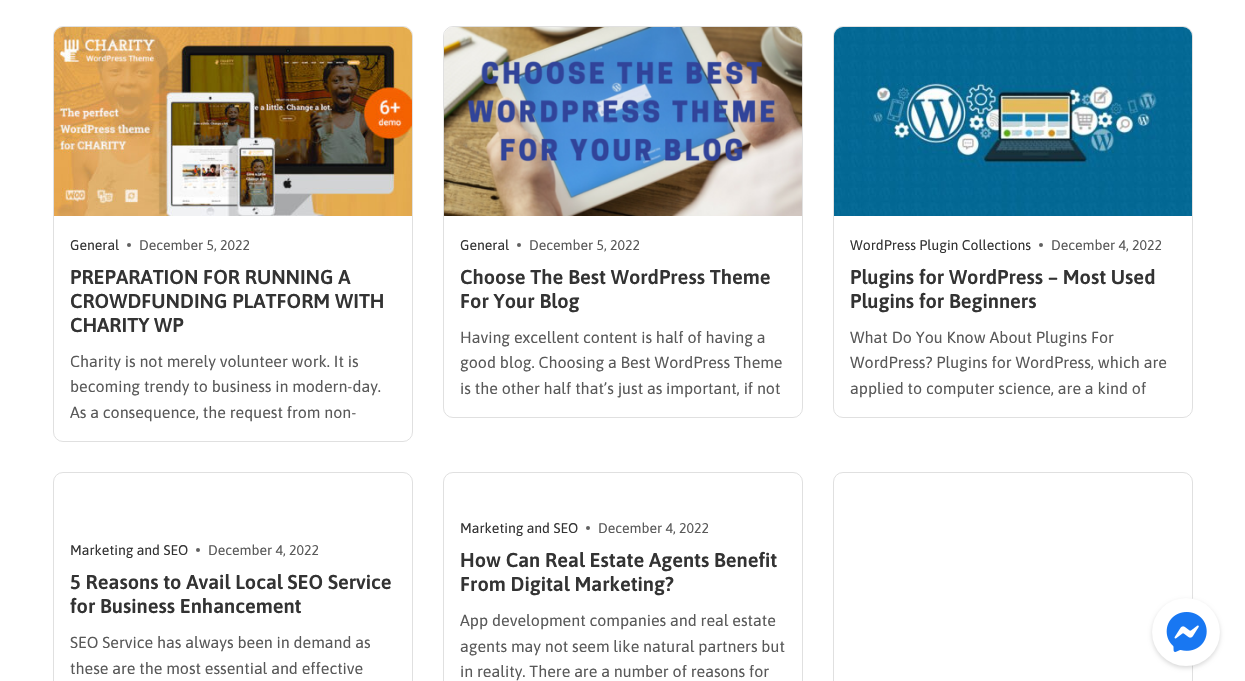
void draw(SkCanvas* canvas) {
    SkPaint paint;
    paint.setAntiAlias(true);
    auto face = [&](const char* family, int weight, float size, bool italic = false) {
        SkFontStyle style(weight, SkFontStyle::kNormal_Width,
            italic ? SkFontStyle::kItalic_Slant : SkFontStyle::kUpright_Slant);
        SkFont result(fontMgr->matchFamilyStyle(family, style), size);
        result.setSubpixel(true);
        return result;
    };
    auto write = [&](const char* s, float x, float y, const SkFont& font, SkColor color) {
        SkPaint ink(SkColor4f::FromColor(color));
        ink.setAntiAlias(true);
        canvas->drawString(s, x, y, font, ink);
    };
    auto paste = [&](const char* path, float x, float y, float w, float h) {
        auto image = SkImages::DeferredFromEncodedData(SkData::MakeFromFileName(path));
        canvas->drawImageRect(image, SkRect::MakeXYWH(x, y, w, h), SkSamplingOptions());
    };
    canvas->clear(SK_ColorWHITE);
    paint.setStyle(SkPaint::kStroke_Style);
    paint.setStrokeWidth(1);
    paint.setColor(SkColorSetRGB(224, 224, 224));
    canvas->drawRoundRect(SkRect::MakeXYWH(53.5f, 26.5f, 359, 415), 9.5f, 9.5f, paint);
    paste("pic1.png", 54, 27, 358, 189);
    auto kFont1 = face("Asap", 400, 14);
    write("General", 70, 250, kFont1, SkColorSetRGB(51, 51, 51));
    paint.setStyle(SkPaint::kFill_Style);
    paint.setColor(SkColorSetRGB(97, 97, 97));
    canvas->drawCircle(129, 245, 2, paint);
    write("December 5, 2022", 139, 250, kFont1, SkColorSetRGB(89, 89, 89));
    auto kFont2 = face("Asap", 600, 20);
    write("PREPARATION FOR RUNNING A", 70, 284, kFont2, SkColorSetRGB(51, 51, 51));
    write("CROWDFUNDING PLATFORM WITH", 70, 308, kFont2, SkColorSetRGB(51, 51, 51));
    write("CHARITY WP", 70, 332, kFont2, SkColorSetRGB(51, 51, 51));
    auto kFont3 = face("Asap", 400, 16);
    write("Charity is not merely volunteer work. It is", 70, 367, kFont3, SkColorSetRGB(89, 89, 89));
    write("becoming trendy to business in modern-day.", 70, 392, kFont3, SkColorSetRGB(89, 89, 89));
    write("As a consequence, the request from non-", 70, 418, kFont3, SkColorSetRGB(89, 89, 89));
    paint.setStyle(SkPaint::kStroke_Style);
    paint.setColor(SkColorSetRGB(224, 224, 224));
    canvas->drawRoundRect(SkRect::MakeXYWH(443.5f, 26.5f, 359, 391), 9.5f, 9.5f, paint);
    paste("pic2.png", 444, 27, 358, 189);
    write("General", 460, 250, kFont1, SkColorSetRGB(51, 51, 51));
    paint.setStyle(SkPaint::kFill_Style);
    paint.setColor(SkColorSetRGB(97, 97, 97));
    canvas->drawCircle(519, 245, 2, paint);
    write("December 5, 2022", 529, 250, kFont1, SkColorSetRGB(89, 89, 89));
    write("Choose The Best WordPress Theme", 460, 284, kFont2, SkColorSetRGB(51, 51, 51));
    write("For Your Blog", 460, 308, kFont2, SkColorSetRGB(51, 51, 51));
    write("Having excellent content is half of having a", 460, 343, kFont3, SkColorSetRGB(89, 89, 89));
    write("good blog. Choosing a Best WordPress Theme", 460, 368, kFont3, SkColorSetRGB(89, 89, 89));
    write("is the other half that’s just as important, if not", 460, 394, kFont3, SkColorSetRGB(89, 89, 89));
    paint.setStyle(SkPaint::kStroke_Style);
    paint.setColor(SkColorSetRGB(224, 224, 224));
    canvas->drawRoundRect(SkRect::MakeXYWH(833.5f, 26.5f, 359, 391), 9.5f, 9.5f, paint);
    paste("pic3.png", 834, 27, 358, 189);
    write("WordPress Plugin Collections", 850, 250, kFont1, SkColorSetRGB(51, 51, 51));
    paint.setStyle(SkPaint::kFill_Style);
    paint.setColor(SkColorSetRGB(97, 97, 97));
    canvas->drawCircle(1041, 245, 2, paint);
    write("December 4, 2022", 1051, 250, kFont1, SkColorSetRGB(89, 89, 89));
    write("Plugins for WordPress – Most Used", 850, 284, kFont2, SkColorSetRGB(51, 51, 51));
    write("Plugins for Beginners", 850, 308, kFont2, SkColorSetRGB(51, 51, 51));
    write("What Do You Know About Plugins For", 850, 343, kFont3, SkColorSetRGB(89, 89, 89));
    write("WordPress? Plugins for WordPress, which are", 850, 368, kFont3, SkColorSetRGB(89, 89, 89));
    write("applied to computer science, are a kind of", 850, 394, kFont3, SkColorSetRGB(89, 89, 89));
    paint.setStyle(SkPaint::kStroke_Style);
    paint.setColor(SkColorSetRGB(224, 224, 224));
    canvas->drawRoundRect(SkRect::MakeXYWH(53.5f, 472.5f, 359, 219), 9.5f, 9.5f, paint);
    write("Marketing and SEO", 70, 555, kFont1, SkColorSetRGB(51, 51, 51));
    paint.setStyle(SkPaint::kFill_Style);
    paint.setColor(SkColorSetRGB(97, 97, 97));
    canvas->drawCircle(198, 550, 2, paint);
    write("December 4, 2022", 208, 555, kFont1, SkColorSetRGB(89, 89, 89));
    write("5 Reasons to Avail Local SEO Service", 70, 589, kFont2, SkColorSetRGB(51, 51, 51));
    write("for Business Enhancement", 70, 613, kFont2, SkColorSetRGB(51, 51, 51));
    write("SEO Service has always been in demand as", 70, 648, kFont3, SkColorSetRGB(89, 89, 89));
    write("these are the most essential and effective", 70, 674, kFont3, SkColorSetRGB(89, 89, 89));
    paint.setStyle(SkPaint::kStroke_Style);
    paint.setColor(SkColorSetRGB(224, 224, 224));
    canvas->drawRoundRect(SkRect::MakeXYWH(443.5f, 472.5f, 359, 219), 9.5f, 9.5f, paint);
    write("Marketing and SEO", 460, 533, kFont1, SkColorSetRGB(51, 51, 51));
    paint.setStyle(SkPaint::kFill_Style);
    paint.setColor(SkColorSetRGB(97, 97, 97));
    canvas->drawCircle(588, 528, 2, paint);
    write("December 4, 2022", 598, 533, kFont1, SkColorSetRGB(89, 89, 89));
    write("How Can Real Estate Agents Benefit", 460, 567, kFont2, SkColorSetRGB(51, 51, 51));
    write("From Digital Marketing?", 460, 591, kFont2, SkColorSetRGB(51, 51, 51));
    write("App development companies and real estate", 460, 626, kFont3, SkColorSetRGB(89, 89, 89));
    write("agents may not seem like natural partners but", 460, 652, kFont3, SkColorSetRGB(89, 89, 89));
    write("in reality. There are a number of reasons for", 460, 677, kFont3, SkColorSetRGB(89, 89, 89));
    paint.setStyle(SkPaint::kStroke_Style);
    paint.setColor(SkColorSetRGB(224, 224, 224));
    canvas->drawRoundRect(SkRect::MakeXYWH(833.5f, 472.5f, 359, 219), 9.5f, 9.5f, paint);
    paint.setStyle(SkPaint::kFill_Style);
    paint.setColor(SkColorSetARGB(38, 0, 0, 0));
    paint.setMaskFilter(SkMaskFilter::MakeBlur(kNormal_SkBlurStyle, 2));
    canvas->drawRoundRect(SkRect::MakeXYWH(1152, 600, 68, 68), 34, 34, paint);
    paint.setMaskFilter(nullptr);
    paint.setColor(SK_ColorWHITE);
    canvas->drawCircle(1186, 632, 34, paint);
    paste("pic4.png", 1166, 612, 41, 40);
}
